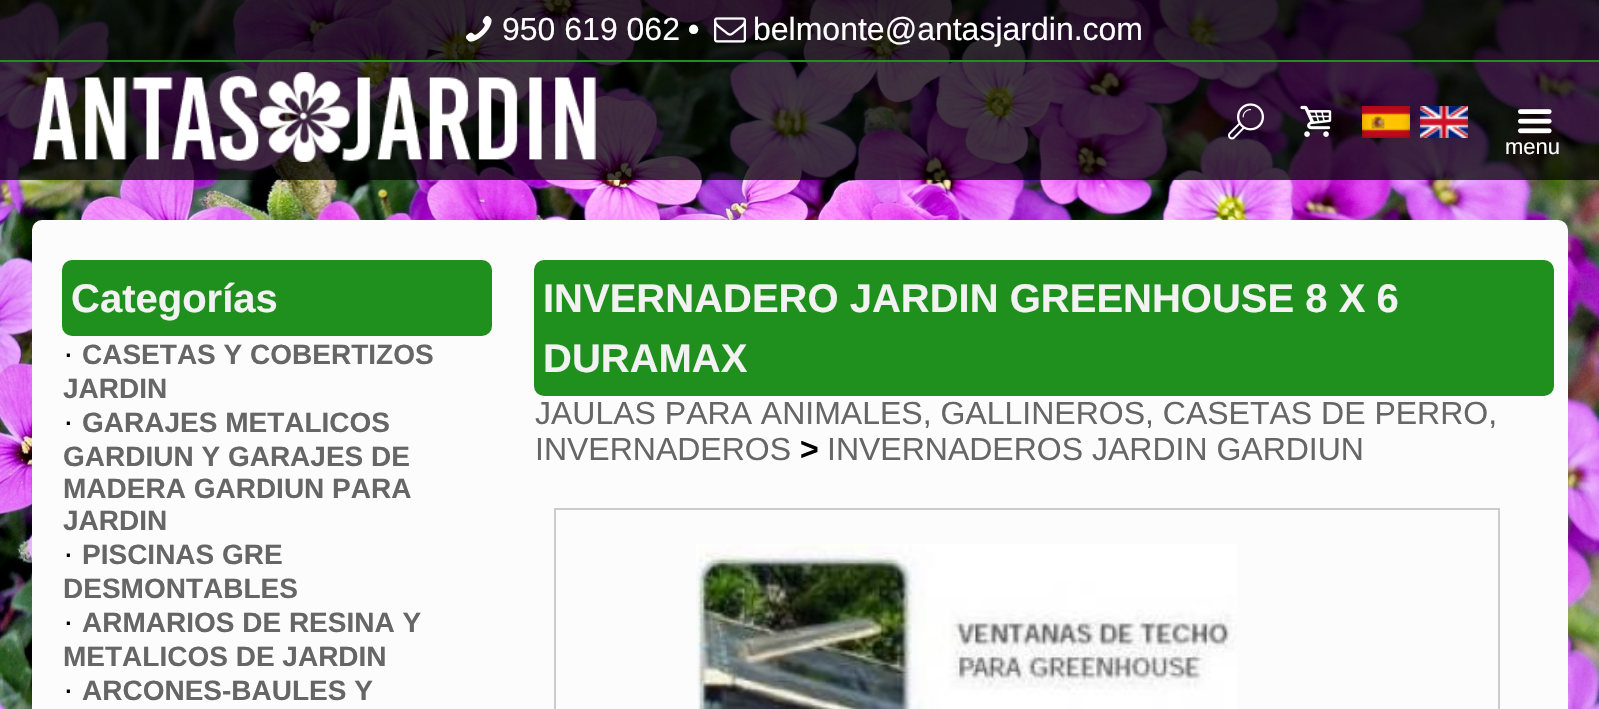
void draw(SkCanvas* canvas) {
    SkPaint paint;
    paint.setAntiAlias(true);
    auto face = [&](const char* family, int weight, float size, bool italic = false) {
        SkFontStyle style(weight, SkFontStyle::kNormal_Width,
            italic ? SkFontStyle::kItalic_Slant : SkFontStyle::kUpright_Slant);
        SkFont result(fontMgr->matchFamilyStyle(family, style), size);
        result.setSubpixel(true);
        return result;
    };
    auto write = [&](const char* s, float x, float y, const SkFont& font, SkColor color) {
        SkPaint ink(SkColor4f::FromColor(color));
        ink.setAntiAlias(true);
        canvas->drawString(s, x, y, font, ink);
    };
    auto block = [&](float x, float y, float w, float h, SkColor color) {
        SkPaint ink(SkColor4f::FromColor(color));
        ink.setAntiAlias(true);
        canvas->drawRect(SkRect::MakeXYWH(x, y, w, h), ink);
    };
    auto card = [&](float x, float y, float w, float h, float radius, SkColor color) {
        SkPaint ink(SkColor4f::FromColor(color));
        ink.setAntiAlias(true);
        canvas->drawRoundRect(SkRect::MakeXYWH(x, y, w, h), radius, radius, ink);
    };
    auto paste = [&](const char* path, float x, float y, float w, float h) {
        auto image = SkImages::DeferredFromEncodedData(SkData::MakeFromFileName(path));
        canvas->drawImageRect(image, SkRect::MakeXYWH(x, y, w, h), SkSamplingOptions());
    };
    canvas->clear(SK_ColorWHITE);
    paste("pic1.png", 0, 0, 1599, 709);
    block(0, 0, 1599, 180, SkColorSetARGB(191, 0, 0, 0));
    block(0, 0, 1599, 60, SkColorSetARGB(77, 0, 0, 0));
    block(0, 60, 1599, 2, SkColorSetRGB(31, 144, 30));
    paste("pic2.png", 466, 16, 26, 26);
    auto kFont1 = face("Liberation Sans", 400, 32);
    write("950 619 062", 502, 40, kFont1, SK_ColorWHITE);
    auto kFont2 = face("Liberation Sans", 700, 32);
    write("•", 688, 40, kFont2, SK_ColorWHITE);
    paste("pic3.png", 714, 17, 32, 26);
    write("belmonte@antasjardin.com", 753, 40, kFont1, SK_ColorWHITE);
    paste("pic4.png", 32, 72, 564, 90);
    paste("pic5.png", 1228, 103, 36, 37);
    paste("pic6.png", 1300, 105, 32, 32);
    paste("pic7.png", 1362, 106, 48, 32);
    paste("pic8.png", 1420, 106, 48, 32);
    paste("pic9.png", 1518, 109, 34, 25);
    auto kFont3 = face("Liberation Sans", 400, 22);
    write("menu", 1505, 154, kFont3, SK_ColorWHITE);
    card(32, 220, 1536, 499, 10, SkColorSetRGB(252, 252, 252));
    card(62, 260, 430, 76, 10, SkColorSetRGB(31, 144, 30));
    auto kFont4 = face("Liberation Sans", 700, 40);
    write("Categorías", 71, 312, kFont4, SkColorSetRGB(242, 242, 242));
    write("·", 63, 364, kFont1, SK_ColorBLACK);
    auto kFont5 = face("Liberation Sans", 700, 28);
    write("CASETAS Y COBERTIZOS", 82, 364, kFont5, SkColorSetRGB(102, 102, 102));
    write("JARDIN", 63, 398, kFont5, SkColorSetRGB(102, 102, 102));
    write("·", 63, 432, kFont1, SK_ColorBLACK);
    write("GARAJES METALICOS", 82, 432, kFont5, SkColorSetRGB(102, 102, 102));
    write("GARDIUN Y GARAJES DE", 63, 466, kFont5, SkColorSetRGB(102, 102, 102));
    write("MADERA GARDIUN PARA", 63, 498, kFont5, SkColorSetRGB(102, 102, 102));
    write("JARDIN", 63, 530, kFont5, SkColorSetRGB(102, 102, 102));
    write("·", 63, 564, kFont1, SK_ColorBLACK);
    write("PISCINAS GRE", 82, 564, kFont5, SkColorSetRGB(102, 102, 102));
    write("DESMONTABLES", 63, 598, kFont5, SkColorSetRGB(102, 102, 102));
    write("·", 63, 632, kFont1, SK_ColorBLACK);
    write("ARMARIOS DE RESINA Y", 82, 632, kFont5, SkColorSetRGB(102, 102, 102));
    write("METALICOS DE JARDIN", 63, 666, kFont5, SkColorSetRGB(102, 102, 102));
    write("·", 63, 700, kFont1, SK_ColorBLACK);
    write("ARCONES-BAULES Y", 82, 700, kFont5, SkColorSetRGB(102, 102, 102));
    card(534, 260, 1020, 136, 10, SkColorSetRGB(31, 144, 30));
    write("INVERNADERO JARDIN GREENHOUSE 8 X 6", 543, 312, kFont4, SkColorSetRGB(242, 242, 242));
    write("DURAMAX", 543, 372, kFont4, SkColorSetRGB(242, 242, 242));
    write("JAULAS PARA ANIMALES, GALLINEROS, CASETAS DE PERRO,", 535, 424, kFont1, SkColorSetRGB(102, 102, 102));
    write("INVERNADEROS", 535, 460, kFont1, SkColorSetRGB(102, 102, 102));
    write(">", 800, 460, kFont2, SK_ColorBLACK);
    write("INVERNADEROS JARDIN GARDIUN", 827, 460, kFont1, SkColorSetRGB(102, 102, 102));
    paint.setStyle(SkPaint::kStroke_Style);
    paint.setStrokeWidth(2);
    paint.setColor(SkColorSetRGB(204, 204, 204));
    canvas->drawRect(SkRect::MakeXYWH(555, 509, 944, 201), paint);
    paste("pic10.png", 696, 544, 541, 165);
}
